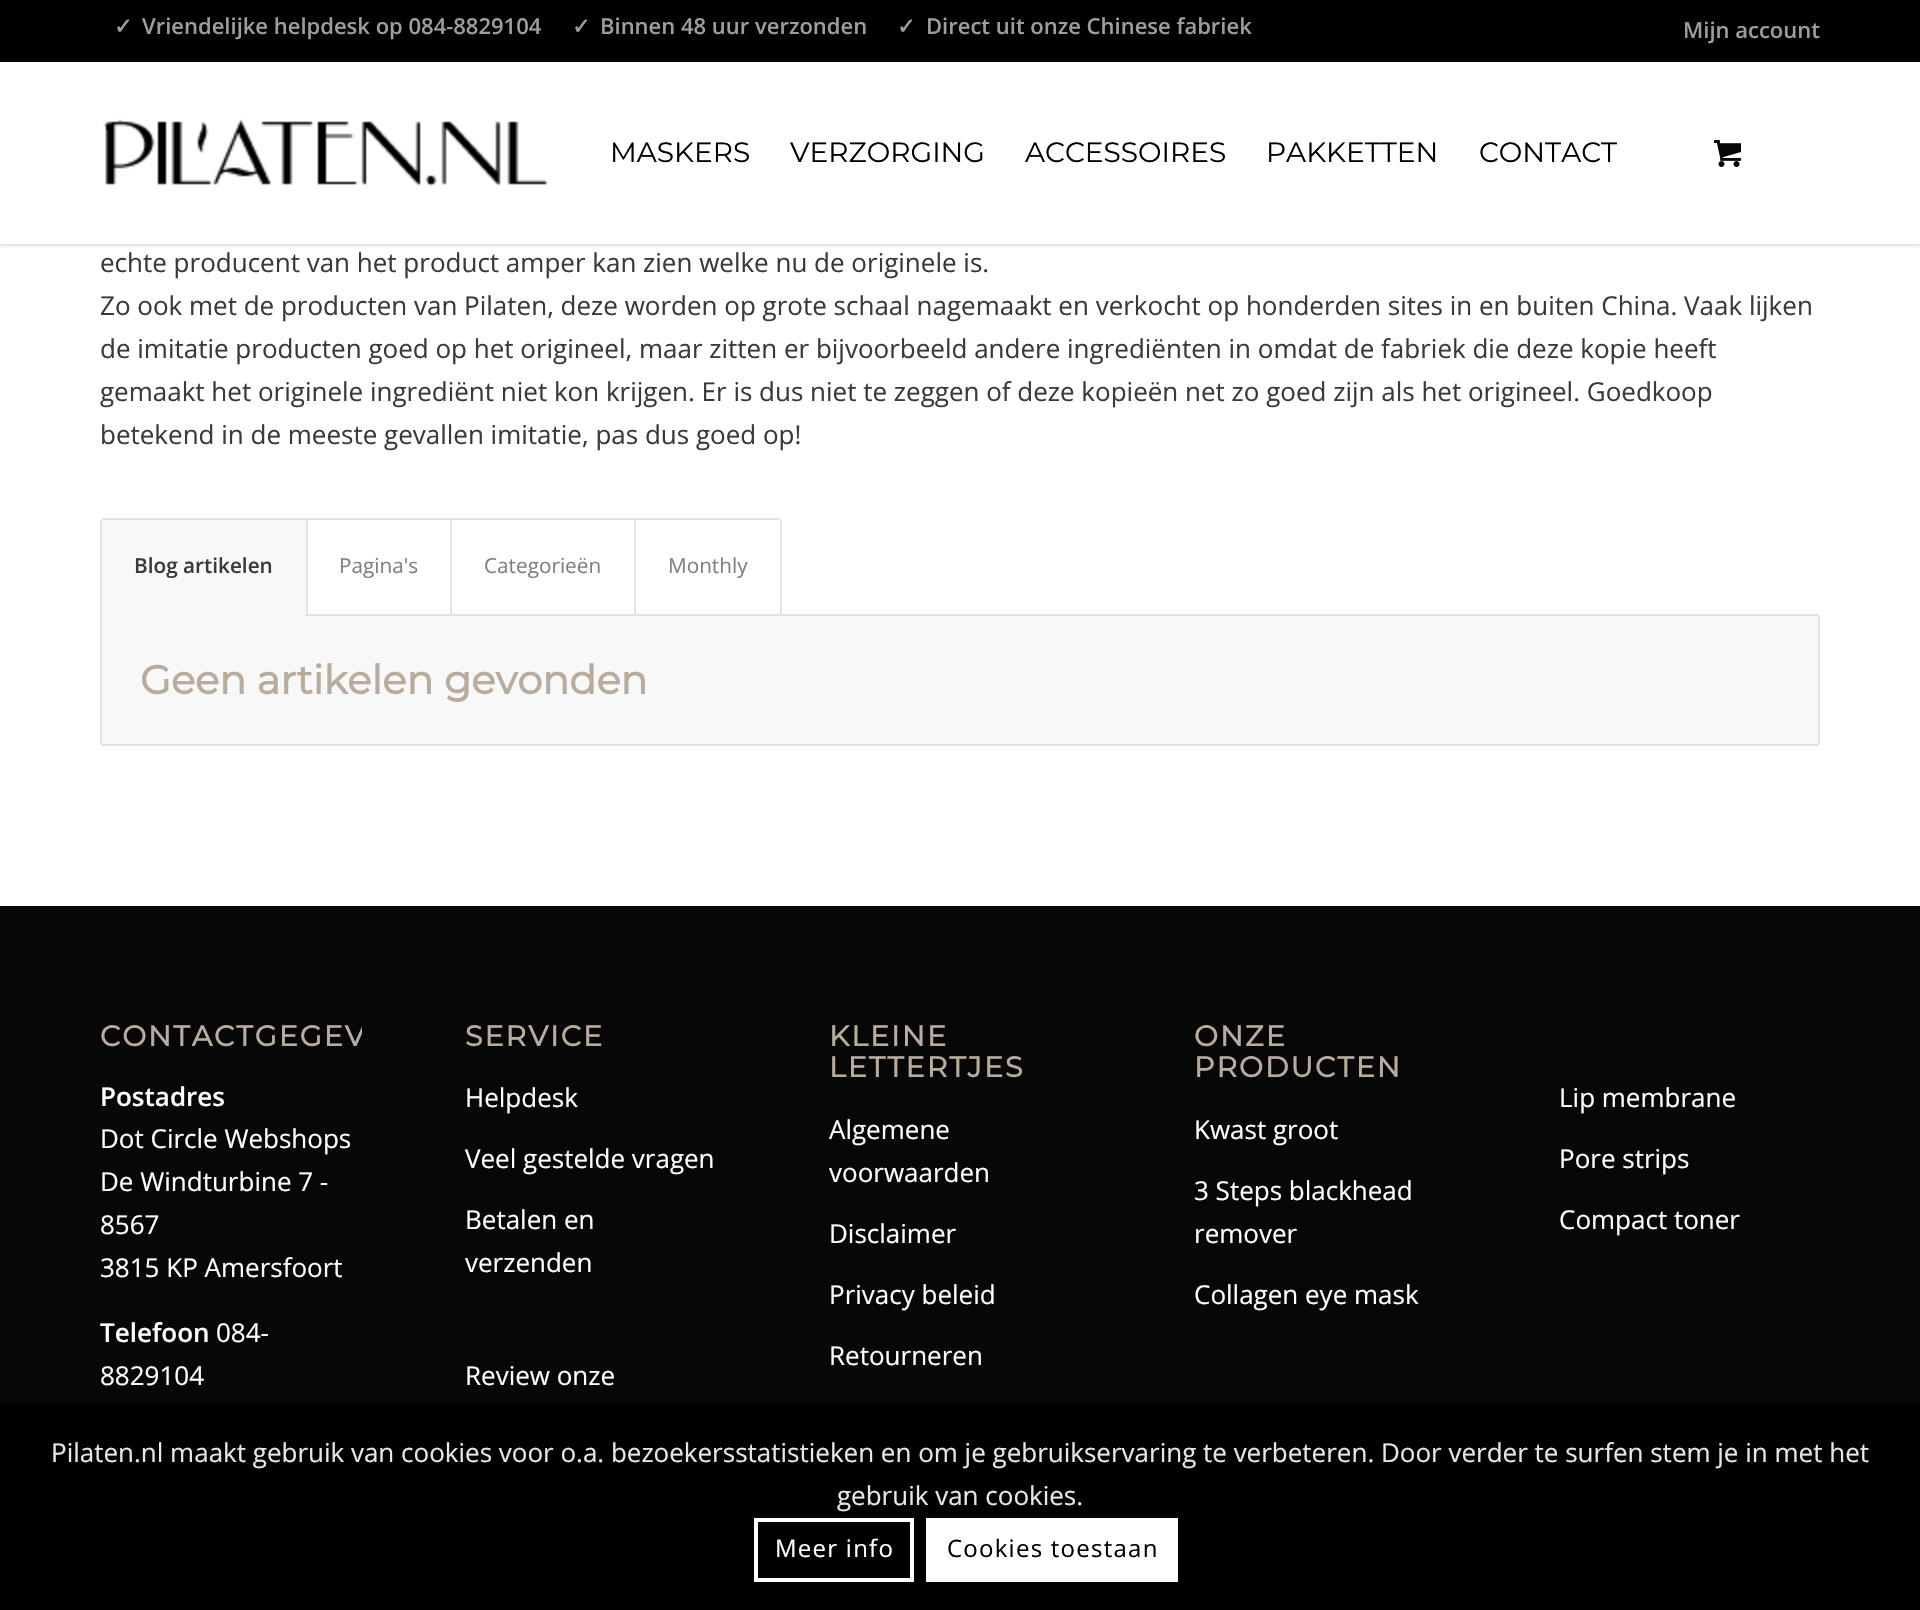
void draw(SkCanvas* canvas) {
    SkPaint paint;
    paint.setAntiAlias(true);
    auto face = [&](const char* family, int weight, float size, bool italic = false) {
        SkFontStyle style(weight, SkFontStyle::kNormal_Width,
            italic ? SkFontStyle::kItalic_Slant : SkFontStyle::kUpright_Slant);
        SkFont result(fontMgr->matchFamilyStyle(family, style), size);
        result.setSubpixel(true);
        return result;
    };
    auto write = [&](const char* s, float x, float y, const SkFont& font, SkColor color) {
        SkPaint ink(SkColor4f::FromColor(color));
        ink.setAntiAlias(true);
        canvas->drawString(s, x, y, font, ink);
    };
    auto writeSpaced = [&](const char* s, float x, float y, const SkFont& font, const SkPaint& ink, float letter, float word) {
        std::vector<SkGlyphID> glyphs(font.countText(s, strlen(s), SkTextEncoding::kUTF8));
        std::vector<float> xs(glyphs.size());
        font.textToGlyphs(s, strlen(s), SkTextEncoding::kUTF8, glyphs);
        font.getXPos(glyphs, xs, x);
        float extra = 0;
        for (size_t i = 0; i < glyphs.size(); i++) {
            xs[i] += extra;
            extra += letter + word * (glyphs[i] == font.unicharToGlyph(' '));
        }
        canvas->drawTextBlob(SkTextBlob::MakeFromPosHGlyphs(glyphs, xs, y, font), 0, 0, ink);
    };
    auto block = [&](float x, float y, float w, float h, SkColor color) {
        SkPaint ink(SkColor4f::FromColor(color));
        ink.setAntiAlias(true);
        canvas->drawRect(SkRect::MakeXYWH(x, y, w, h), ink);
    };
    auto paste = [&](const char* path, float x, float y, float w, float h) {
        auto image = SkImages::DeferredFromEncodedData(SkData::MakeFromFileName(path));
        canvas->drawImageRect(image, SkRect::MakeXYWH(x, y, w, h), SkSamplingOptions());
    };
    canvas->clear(SK_ColorWHITE);
    block(0, 244, 1920, 2, SkColorSetRGB(242, 242, 242));
    canvas->save();
    canvas->clipRect(SkRect::MakeXYWH(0, 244, 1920, 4));
    paint.setColor(SkColorSetARGB(13, 0, 0, 0));
    paint.setMaskFilter(SkMaskFilter::MakeBlur(kNormal_SkBlurStyle, 2));
    canvas->drawRect(SkRect::MakeXYWH(0, 64, 1920, 184), paint);
    paint.setMaskFilter(nullptr);
    canvas->restore();
    block(0, 0, 1920, 62, SK_ColorBLACK);
    auto kFont1 = face("DejaVu Sans", 700, 22);
    write("✓", 114, 34, kFont1, SkColorSetRGB(157, 157, 157));
    auto kFont2 = face("Open Sans", 600, 22);
    write("Vriendelijke helpdesk op 084-8829104", 142, 34, kFont2, SkColorSetRGB(157, 157, 157));
    write("✓", 572, 34, kFont1, SkColorSetRGB(157, 157, 157));
    write("Binnen 48 uur verzonden", 600, 34, kFont2, SkColorSetRGB(157, 157, 157));
    write("✓", 897, 34, kFont1, SkColorSetRGB(157, 157, 157));
    write("Direct uit onze Chinese fabriek", 926, 34, kFont2, SkColorSetRGB(157, 157, 157));
    write("Mijn account", 1683, 38, kFont2, SkColorSetRGB(157, 157, 157));
    paste("pic1.png", 103, 119, 446, 68);
    auto kFont3 = face("Montserrat", 100, 28);
    write("MASKERS", 610, 162, kFont3, SK_ColorBLACK);
    write("VERZORGING", 790, 162, kFont3, SK_ColorBLACK);
    write("ACCESSOIRES", 1025, 162, kFont3, SK_ColorBLACK);
    write("PAKKETTEN", 1266, 162, kFont3, SK_ColorBLACK);
    write("CONTACT", 1479, 162, kFont3, SK_ColorBLACK);
    paste("pic2.png", 1714, 140, 27, 27);
    auto kFont4 = face("Open Sans", 400, 26);
    write("echte producent van het product amper kan zien welke nu de originele is.", 100, 272, kFont4, SkColorSetRGB(58, 58, 58));
    write("Zo ook met de producten van Pilaten, deze worden op grote schaal nagemaakt en verkocht op honderden sites in en buiten China. Vaak lijken", 100, 315, kFont4, SkColorSetRGB(58, 58, 58));
    write("de imitatie producten goed op het origineel, maar zitten er bijvoorbeeld andere ingrediënten in omdat de fabriek die deze kopie heeft", 100, 358, kFont4, SkColorSetRGB(58, 58, 58));
    write("gemaakt het originele ingrediënt niet kon krijgen. Er is dus niet te zeggen of deze kopieën net zo goed zijn als het origineel. Goedkoop", 100, 401, kFont4, SkColorSetRGB(58, 58, 58));
    write("betekend in de meeste gevallen imitatie, pas dus goed op!", 100, 444, kFont4, SkColorSetRGB(58, 58, 58));
    block(306, 518, 146, 2, SkColorSetRGB(227, 227, 227));
    paint.setColor(SkColorSetRGB(248, 248, 248));
    canvas->drawRoundRect(SkRect::MakeXYWH(101, 615, 1718, 130), 3, 3, paint);
    paint.setStyle(SkPaint::kStroke_Style);
    paint.setStrokeWidth(2);
    paint.setColor(SkColorSetRGB(227, 227, 227));
    canvas->drawRoundRect(SkRect::MakeXYWH(101, 615, 1718, 130), 3, 3, paint);
    paint.setStyle(SkPaint::kFill_Style);
    paint.setColor(SkColorSetRGB(248, 248, 248));
    canvas->drawPath(SkPathBuilder().moveTo(104, 518).lineTo(308, 518).lineTo(308, 616).lineTo(100, 616).lineTo(100, 522).cubicTo(100, 520, 102, 518, 104, 518).close().detach(), paint);
    block(102, 518, 206, 2, SkColorSetRGB(227, 227, 227));
    block(306, 518, 2, 98, SkColorSetRGB(227, 227, 227));
    block(100, 520, 2, 96, SkColorSetRGB(227, 227, 227));
    auto kFont5 = face("Open Sans", 600, 20.75f);
    write("Blog artikelen", 134, 573, kFont5, SkColorSetRGB(58, 58, 58));
    block(450, 518, 2, 98, SkColorSetRGB(227, 227, 227));
    auto kFont6 = face("Open Sans", 400, 20.75f);
    write("Pagina's", 339, 573, kFont6, SkColorSetRGB(128, 128, 128));
    block(450, 518, 186, 2, SkColorSetRGB(227, 227, 227));
    block(634, 518, 2, 98, SkColorSetRGB(227, 227, 227));
    write("Categorieën", 484, 573, kFont6, SkColorSetRGB(128, 128, 128));
    block(634, 518, 146, 2, SkColorSetRGB(227, 227, 227));
    block(780, 520, 2, 96, SkColorSetRGB(227, 227, 227));
    write("Monthly", 668, 573, kFont6, SkColorSetRGB(128, 128, 128));
    auto kFont7 = face("Montserrat", 700, 40);
    write("Geen artikelen gevonden", 140, 694, kFont7, SkColorSetRGB(185, 172, 156));
    block(0, 906, 1920, 498, SkColorSetRGB(7, 7, 7));
    canvas->save();
    canvas->clipRect(SkRect::MakeXYWH(100, 998, 262, 464));
    auto kFont8 = face("Montserrat", 700, 28.5f);
    paint.setColor(SkColorSetRGB(185, 172, 156));
    writeSpaced("CONTACTGEGEV", 100, 1046, kFont8, paint, 2, 0);
    canvas->restore();
    auto kFont9 = face("Open Sans", 600, 26);
    write("Postadres", 100, 1106, kFont9, SK_ColorWHITE);
    write("Dot Circle Webshops", 100, 1148, kFont4, SK_ColorWHITE);
    write("De Windturbine 7 -", 100, 1191, kFont4, SK_ColorWHITE);
    write("8567", 100, 1234, kFont4, SK_ColorWHITE);
    write("3815 KP Amersfoort", 100, 1277, kFont4, SK_ColorWHITE);
    write("Telefoon", 100, 1342, kFont9, SK_ColorWHITE);
    write("084-", 216, 1342, kFont4, SK_ColorWHITE);
    write("8829104", 100, 1385, kFont4, SK_ColorWHITE);
    writeSpaced("SERVICE", 465, 1046, kFont8, paint, 2, 0);
    write("Helpdesk", 465, 1107, kFont4, SK_ColorWHITE);
    write("Veel gestelde vragen", 465, 1168, kFont4, SK_ColorWHITE);
    write("Betalen en", 465, 1229, kFont4, SK_ColorWHITE);
    write("verzenden", 465, 1272, kFont4, SK_ColorWHITE);
    write("Review onze", 465, 1385, kFont4, SK_ColorWHITE);
    writeSpaced("KLEINE", 829, 1046, kFont8, paint, 2, 0);
    writeSpaced("LETTERTJES", 829, 1077, kFont8, paint, 2, 0);
    write("Algemene", 829, 1139, kFont4, SK_ColorWHITE);
    write("voorwaarden", 829, 1182, kFont4, SK_ColorWHITE);
    write("Disclaimer", 829, 1243, kFont4, SK_ColorWHITE);
    write("Privacy beleid", 829, 1304, kFont4, SK_ColorWHITE);
    write("Retourneren", 829, 1365, kFont4, SK_ColorWHITE);
    writeSpaced("ONZE", 1194, 1046, kFont8, paint, 2, 0);
    writeSpaced("PRODUCTEN", 1194, 1077, kFont8, paint, 2, 0);
    write("Kwast groot", 1194, 1139, kFont4, SK_ColorWHITE);
    write("3 Steps blackhead", 1194, 1200, kFont4, SK_ColorWHITE);
    write("remover", 1194, 1243, kFont4, SK_ColorWHITE);
    write("Collagen eye mask", 1194, 1304, kFont4, SK_ColorWHITE);
    write("Lip membrane", 1559, 1107, kFont4, SK_ColorWHITE);
    write("Pore strips", 1559, 1168, kFont4, SK_ColorWHITE);
    write("Compact toner", 1559, 1229, kFont4, SK_ColorWHITE);
    block(0, 1404, 1920, 206, SK_ColorBLACK);
    write("Pilaten.nl maakt gebruik van cookies voor o.a. bezoekersstatistieken en om je gebruikservaring te verbeteren. Door verder te surfen stem je in met het", 51, 1462, kFont4, SkColorSetRGB(230, 230, 230));
    write("gebruik van cookies.", 837, 1505, kFont4, SkColorSetRGB(230, 230, 230));
    paint.setStyle(SkPaint::kStroke_Style);
    paint.setStrokeWidth(4);
    paint.setColor(SK_ColorWHITE);
    canvas->drawRect(SkRect::MakeXYWH(756, 1520, 156, 60), paint);
    auto kFont10 = face("Open Sans", 400, 24);
    paint.setStyle(SkPaint::kFill_Style);
    writeSpaced("Meer info", 775, 1557, kFont10, paint, 1.25f, 0);
    block(926, 1518, 252, 64, SK_ColorWHITE);
    paint.setColor(SK_ColorBLACK);
    writeSpaced("Cookies toestaan", 947, 1557, kFont10, paint, 1.25f, 0);
}
